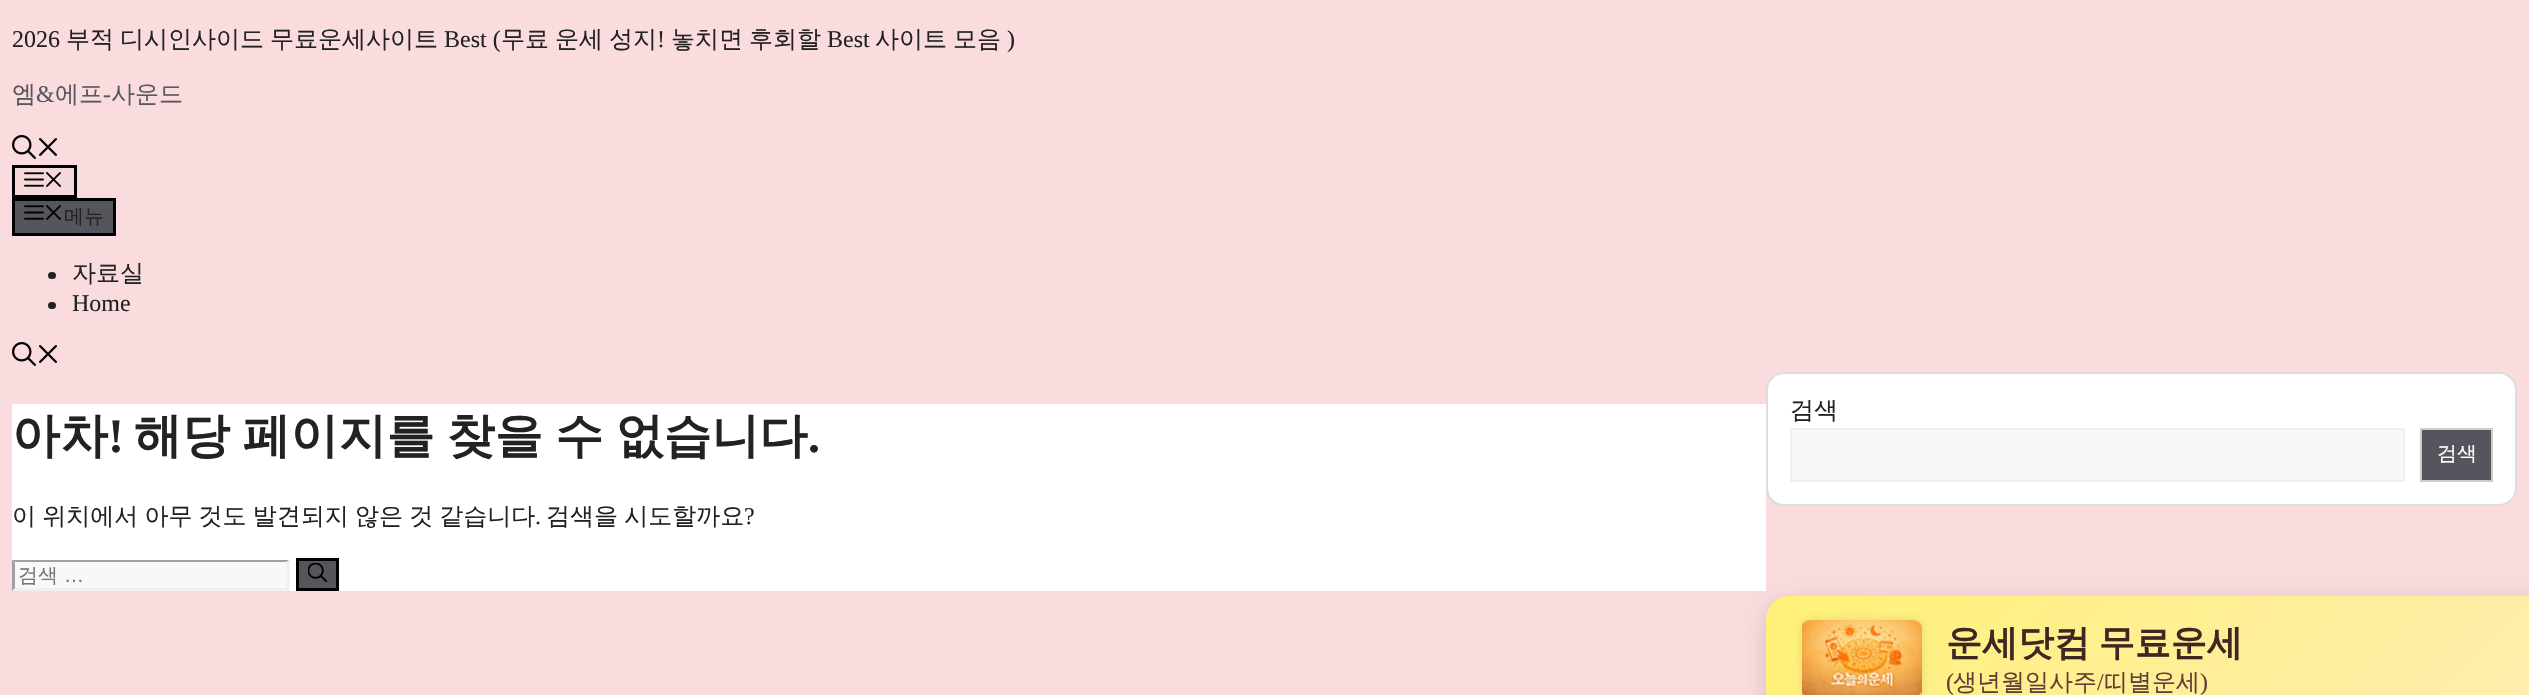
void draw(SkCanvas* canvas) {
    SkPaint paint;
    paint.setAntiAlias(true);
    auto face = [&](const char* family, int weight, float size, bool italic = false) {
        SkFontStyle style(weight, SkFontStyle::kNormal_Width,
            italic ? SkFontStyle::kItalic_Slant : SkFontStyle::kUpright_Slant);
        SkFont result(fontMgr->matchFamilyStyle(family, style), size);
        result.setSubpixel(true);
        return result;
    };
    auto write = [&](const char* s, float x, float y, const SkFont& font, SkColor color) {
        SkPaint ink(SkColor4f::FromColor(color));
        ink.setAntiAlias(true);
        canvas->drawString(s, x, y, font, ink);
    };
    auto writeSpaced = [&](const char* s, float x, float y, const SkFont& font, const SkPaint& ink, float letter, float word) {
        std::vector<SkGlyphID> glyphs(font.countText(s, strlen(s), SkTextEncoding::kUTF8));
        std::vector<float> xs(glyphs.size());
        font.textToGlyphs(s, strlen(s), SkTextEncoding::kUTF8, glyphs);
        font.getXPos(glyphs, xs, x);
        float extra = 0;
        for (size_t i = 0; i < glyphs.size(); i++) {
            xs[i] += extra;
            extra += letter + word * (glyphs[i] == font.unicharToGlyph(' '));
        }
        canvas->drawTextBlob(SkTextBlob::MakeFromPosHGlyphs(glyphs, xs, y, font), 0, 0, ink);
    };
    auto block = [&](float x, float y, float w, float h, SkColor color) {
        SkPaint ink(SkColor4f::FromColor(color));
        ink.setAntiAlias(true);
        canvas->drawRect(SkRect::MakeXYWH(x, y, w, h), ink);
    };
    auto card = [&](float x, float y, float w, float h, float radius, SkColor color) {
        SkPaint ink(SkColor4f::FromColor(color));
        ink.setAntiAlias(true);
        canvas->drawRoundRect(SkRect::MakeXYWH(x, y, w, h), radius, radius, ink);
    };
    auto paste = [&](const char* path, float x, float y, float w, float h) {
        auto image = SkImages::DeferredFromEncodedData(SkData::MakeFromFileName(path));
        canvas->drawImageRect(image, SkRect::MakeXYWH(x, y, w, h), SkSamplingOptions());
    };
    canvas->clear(SkColorSetRGB(250, 220, 222));
    auto kFont1 = face("Liberation Serif", 400, 24);
    write("2026", 12, 47, kFont1, SkColorSetRGB(34, 34, 34));
    auto kFont2 = face("WenQuanYi Zen Hei", 500, 24);
    write("부적", 66, 47, kFont2, SkColorSetRGB(34, 34, 34));
    write("디시인사이드", 120, 47, kFont2, SkColorSetRGB(34, 34, 34));
    write("무료운세사이트", 270, 47, kFont2, SkColorSetRGB(34, 34, 34));
    write("Best (", 444, 47, kFont1, SkColorSetRGB(34, 34, 34));
    write("무료", 501, 47, kFont2, SkColorSetRGB(34, 34, 34));
    write("운세", 555, 47, kFont2, SkColorSetRGB(34, 34, 34));
    write("성지", 609, 47, kFont2, SkColorSetRGB(34, 34, 34));
    write("!", 657, 47, kFont1, SkColorSetRGB(34, 34, 34));
    write("놓치면", 671, 47, kFont2, SkColorSetRGB(34, 34, 34));
    write("후회할", 749, 47, kFont2, SkColorSetRGB(34, 34, 34));
    write("Best", 827, 47, kFont1, SkColorSetRGB(34, 34, 34));
    write("사이트", 875, 47, kFont2, SkColorSetRGB(34, 34, 34));
    write("모음", 953, 47, kFont2, SkColorSetRGB(34, 34, 34));
    write(")", 1007, 47, kFont1, SkColorSetRGB(34, 34, 34));
    write("엠", 12, 102, kFont2, SkColorSetRGB(87, 87, 96));
    write("&", 36, 102, kFont1, SkColorSetRGB(87, 87, 96));
    write("에프", 55, 102, kFont2, SkColorSetRGB(87, 87, 96));
    write("-", 103, 102, kFont1, SkColorSetRGB(87, 87, 96));
    write("사운드", 111, 102, kFont2, SkColorSetRGB(87, 87, 96));
    paste("pic1.png", 12, 135, 24, 24);
    paste("pic2.png", 39, 138, 18, 18);
    paint.setColor(SkColorSetRGB(245, 216, 218));
    canvas->drawRect(SkRect::MakeXYWH(13.5f, 166.5f, 62, 30), paint);
    paint.setStyle(SkPaint::kStroke_Style);
    paint.setStrokeWidth(3);
    paint.setColor(SK_ColorBLACK);
    canvas->drawRect(SkRect::MakeXYWH(13.5f, 166.5f, 62, 30), paint);
    paste("pic3.png", 24, 172, 20, 15);
    paste("pic4.png", 46, 172, 15, 15);
    paint.setStyle(SkPaint::kFill_Style);
    paint.setColor(SkColorSetRGB(85, 85, 94));
    canvas->drawRect(SkRect::MakeXYWH(13.5f, 199.5f, 101, 35), paint);
    paint.setStyle(SkPaint::kStroke_Style);
    paint.setColor(SK_ColorBLACK);
    canvas->drawRect(SkRect::MakeXYWH(13.5f, 199.5f, 101, 35), paint);
    paste("pic5.png", 24, 205, 20, 15);
    paste("pic6.png", 46, 205, 15, 15);
    auto kFont3 = face("WenQuanYi Zen Hei", 500, 20);
    write("메뉴", 64, 223, kFont3, SkColorSetRGB(34, 34, 34));
    card(48, 272, 8, 7, 3.5f, SkColorSetRGB(34, 34, 34));
    write("자료실", 72, 281, kFont2, SkColorSetRGB(34, 34, 34));
    card(48, 302, 8, 7, 3.5f, SkColorSetRGB(34, 34, 34));
    write("Home", 72, 311, kFont1, SkColorSetRGB(34, 34, 34));
    paste("pic1.png", 12, 342, 24, 24);
    paste("pic2.png", 39, 345, 18, 18);
    block(12, 404, 1754, 187, SK_ColorWHITE);
    auto kFont4 = face("WenQuanYi Zen Hei", 700, 48);
    write("아차", 12, 452, kFont4, SkColorSetRGB(34, 34, 34));
    auto kFont5 = face("Liberation Serif", 700, 48);
    write("!", 108, 452, kFont5, SkColorSetRGB(34, 34, 34));
    paint.setStyle(SkPaint::kFill_Style);
    paint.setColor(SkColorSetRGB(34, 34, 34));
    writeSpaced("해당 페이지를 찾을 수 없습니다", 134, 452, kFont4, paint, 0, -2);
    write(".", 808, 452, kFont5, SkColorSetRGB(34, 34, 34));
    writeSpaced("이 위치에서 아무 것도 발견되지 않은 것 같습니다", 12, 524, kFont2, paint, 0, -1);
    write(".", 535, 524, kFont1, SkColorSetRGB(34, 34, 34));
    writeSpaced("검색을 시도할까요", 546, 524, kFont2, paint, 0, -1);
    write("?", 744, 524, kFont1, SkColorSetRGB(34, 34, 34));
    block(12, 560, 278, 31, SkColorSetRGB(247, 248, 249));
    paint.setColor(SkColorSetRGB(160, 160, 160));
    canvas->drawPath(SkPathBuilder().moveTo(12, 560).lineTo(290, 560).lineTo(286, 562).lineTo(15, 562).close().detach(), paint);
    paint.setColor(SkColorSetRGB(240, 240, 240));
    canvas->drawPath(SkPathBuilder().moveTo(289.5f, 559.5f).lineTo(289.5f, 591).lineTo(286.5f, 588).lineTo(286.5f, 562.5f).close().detach(), paint);
    canvas->drawPath(SkPathBuilder().moveTo(290, 591).lineTo(12, 591).lineTo(15, 588).lineTo(286, 588).close().detach(), paint);
    paint.setColor(SkColorSetRGB(160, 160, 160));
    canvas->drawPath(SkPathBuilder().moveTo(12, 591).lineTo(12, 559.5f).lineTo(15, 562.5f).lineTo(15, 588).close().detach(), paint);
    write("검색", 18, 582, kFont3, SkColorSetRGB(117, 117, 117));
    auto kFont6 = face("Liberation Sans", 400, 20);
    write("…", 64, 582, kFont6, SkColorSetRGB(117, 117, 117));
    paint.setColor(SkColorSetRGB(85, 85, 94));
    canvas->drawRect(SkRect::MakeXYWH(297.5f, 559.5f, 40, 30), paint);
    paint.setStyle(SkPaint::kStroke_Style);
    paint.setColor(SK_ColorBLACK);
    canvas->drawRect(SkRect::MakeXYWH(297.5f, 559.5f, 40, 30), paint);
    paste("pic7.png", 308, 563, 19, 19);
    paint.setStyle(SkPaint::kFill_Style);
    paint.setColor(SK_ColorWHITE);
    canvas->drawRoundRect(SkRect::MakeXYWH(1767, 373, 749, 132), 17, 17, paint);
    paint.setStyle(SkPaint::kStroke_Style);
    paint.setStrokeWidth(2);
    paint.setColor(SkColorSetRGB(221, 221, 221));
    canvas->drawRoundRect(SkRect::MakeXYWH(1767, 373, 749, 132), 17, 17, paint);
    write("검색", 1790, 418, kFont2, SkColorSetRGB(34, 34, 34));
    paint.setStyle(SkPaint::kFill_Style);
    paint.setColor(SkColorSetRGB(247, 248, 249));
    canvas->drawRect(SkRect::MakeXYWH(1791, 429, 613, 52), paint);
    paint.setStyle(SkPaint::kStroke_Style);
    paint.setColor(SkColorSetRGB(240, 240, 240));
    canvas->drawRect(SkRect::MakeXYWH(1791, 429, 613, 52), paint);
    paint.setStyle(SkPaint::kFill_Style);
    paint.setColor(SkColorSetRGB(85, 85, 94));
    canvas->drawRect(SkRect::MakeXYWH(2421, 429, 71, 52), paint);
    paint.setStyle(SkPaint::kStroke_Style);
    paint.setColor(SkColorSetRGB(204, 204, 204));
    canvas->drawRect(SkRect::MakeXYWH(2421, 429, 71, 52), paint);
    write("검색", 2437, 460, kFont3, SK_ColorWHITE);
    paint.setStyle(SkPaint::kFill_Style);
    paint.setColor(SkColorSetARGB(38, 0, 0, 0));
    paint.setMaskFilter(SkMaskFilter::MakeBlur(kNormal_SkBlurStyle, 10.5f));
    canvas->drawRoundRect(SkRect::MakeXYWH(1766, 602, 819, 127), 24, 24, paint);
    paint.setMaskFilter(nullptr);
    {
        const SkColor colors[] = {SkColorSetRGB(255, 241, 118), SkColorSetRGB(255, 236, 179)};
        const float stops[] = {0, 1};
        const SkPoint ends[] = {{1940, 422}, {2415, 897}};
        paint.setShader(SkGradientShader::MakeLinear(ends, colors, stops, 2, SkTileMode::kClamp));
        paint.setAlpha(255);
    }
    canvas->drawRoundRect(SkRect::MakeXYWH(1766, 596, 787, 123), 24, 24, paint);
    paint.setShader(nullptr);
    paint.setColor(SkColorSetARGB(26, 0, 0, 0));
    paint.setMaskFilter(SkMaskFilter::MakeBlur(kNormal_SkBlurStyle, 4));
    canvas->drawRoundRect(SkRect::MakeXYWH(1802, 620, 120, 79), 8, 8, paint);
    paint.setMaskFilter(nullptr);
    paste("pic8.png", 1802, 620, 120, 75);
    auto kFont7 = face("WenQuanYi Zen Hei", 700, 36);
    paint.setColor(SkColorSetRGB(62, 39, 35));
    writeSpaced("운세닷컴 무료운세", 1946, 655, kFont7, paint, 0, -2);
    write("(", 1946, 690, kFont1, SkColorSetRGB(93, 64, 55));
    write("생년월일사주", 1953, 690, kFont2, SkColorSetRGB(93, 64, 55));
    write("/", 2097, 690, kFont1, SkColorSetRGB(93, 64, 55));
    write("띠별운세", 2104, 690, kFont2, SkColorSetRGB(93, 64, 55));
    write(")", 2200, 690, kFont1, SkColorSetRGB(93, 64, 55));
}
